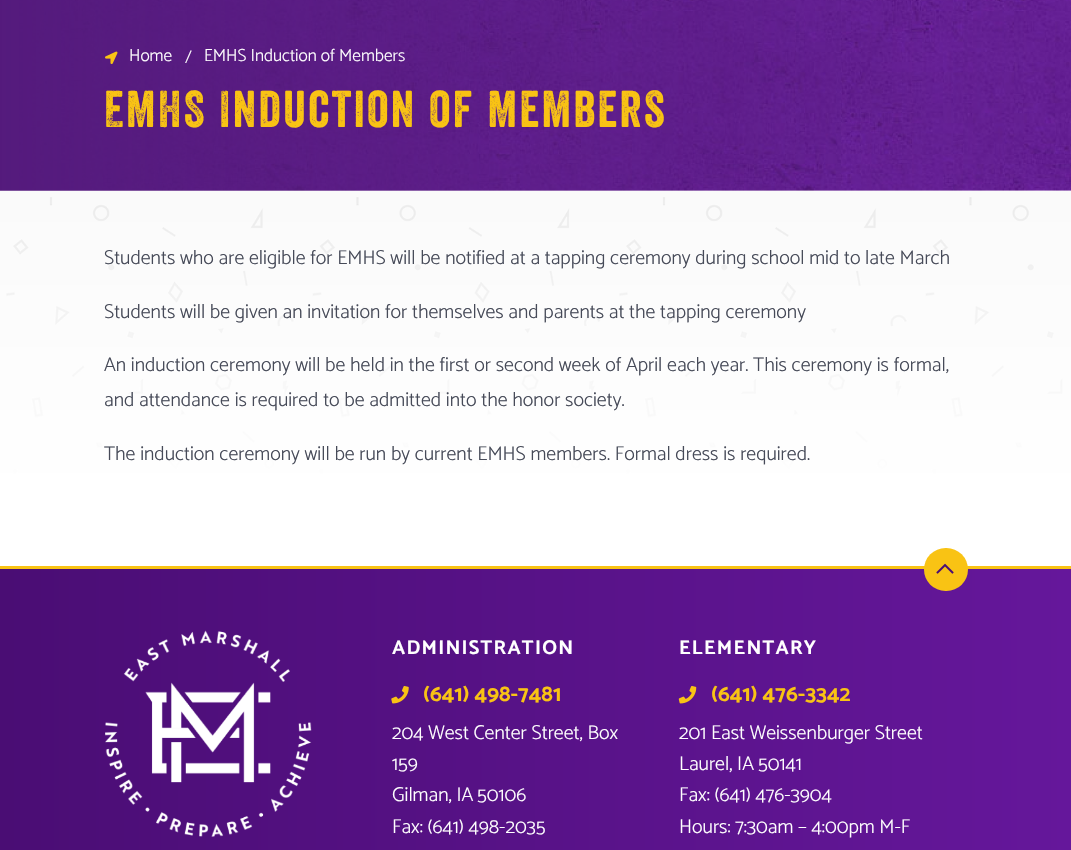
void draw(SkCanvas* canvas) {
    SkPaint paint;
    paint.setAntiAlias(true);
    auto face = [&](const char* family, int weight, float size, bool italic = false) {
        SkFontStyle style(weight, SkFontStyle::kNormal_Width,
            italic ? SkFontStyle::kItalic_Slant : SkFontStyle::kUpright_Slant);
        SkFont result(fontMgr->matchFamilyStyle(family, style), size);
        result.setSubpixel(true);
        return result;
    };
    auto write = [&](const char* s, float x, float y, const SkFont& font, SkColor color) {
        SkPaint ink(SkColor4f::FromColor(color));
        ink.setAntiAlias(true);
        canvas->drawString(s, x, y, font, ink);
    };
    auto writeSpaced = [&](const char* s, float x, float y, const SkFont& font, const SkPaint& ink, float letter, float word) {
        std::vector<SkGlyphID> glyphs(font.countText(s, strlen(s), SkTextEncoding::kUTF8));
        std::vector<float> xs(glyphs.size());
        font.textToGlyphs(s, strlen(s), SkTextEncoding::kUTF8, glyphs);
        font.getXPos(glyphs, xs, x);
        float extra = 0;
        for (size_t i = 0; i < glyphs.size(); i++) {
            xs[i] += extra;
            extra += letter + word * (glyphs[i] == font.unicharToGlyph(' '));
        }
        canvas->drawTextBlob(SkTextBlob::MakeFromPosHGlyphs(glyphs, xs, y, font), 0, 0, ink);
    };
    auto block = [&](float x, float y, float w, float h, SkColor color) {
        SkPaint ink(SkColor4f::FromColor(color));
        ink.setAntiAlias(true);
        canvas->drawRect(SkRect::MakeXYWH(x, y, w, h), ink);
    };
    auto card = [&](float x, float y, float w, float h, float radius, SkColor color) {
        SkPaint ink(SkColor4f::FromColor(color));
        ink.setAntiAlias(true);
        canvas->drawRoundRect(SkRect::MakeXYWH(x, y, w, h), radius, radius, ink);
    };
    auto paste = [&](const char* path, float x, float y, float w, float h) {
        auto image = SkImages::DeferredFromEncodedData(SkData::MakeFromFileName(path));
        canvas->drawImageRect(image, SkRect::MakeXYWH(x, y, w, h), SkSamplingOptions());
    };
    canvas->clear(SK_ColorWHITE);
    paste("pic1.png", 6, 0, 1065, 191);
    {
        const SkColor colors[] = {SkColorSetARGB(0, 84, 26, 124), SkColorSetRGB(84, 26, 124)};
        const float stops[] = {0, 1};
        const SkPoint ends[] = {{1071, 91}, {0, 91}};
        paint.setShader(SkGradientShader::MakeLinear(ends, colors, stops, 2, SkTileMode::kClamp));
        paint.setAlpha(255);
    }
    canvas->drawRect(SkRect::MakeXYWH(0, 0, 1027, 191), paint);
    paste("pic2.png", 105, 51, 13, 13);
    auto kFont1 = face("Catamaran", 300, 17.5f);
    write("Home", 129, 61, kFont1, SK_ColorWHITE);
    write("/", 185, 63, kFont1, SK_ColorWHITE);
    write("EMHS Induction of Members", 204, 61, kFont1, SK_ColorWHITE);
    auto kFont2 = face("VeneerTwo", 400, 50);
    paint.setShader(nullptr);
    paint.setColor(SkColorSetRGB(249, 195, 20));
    writeSpaced("EMHS Induction of Members", 104, 127, kFont2, paint, 2.5f, 0);
    paste("pic3.png", 0, 190, 1071, 313);
    auto kFont3 = face("Catamaran", 300, 20);
    write("Students who are eligible for EMHS will be notified at a tapping ceremony during school mid to late March", 104, 264, kFont3, SkColorSetRGB(70, 74, 88));
    write("Students will be given an invitation for themselves and parents at the tapping ceremony", 104, 318, kFont3, SkColorSetRGB(70, 74, 88));
    write("An induction ceremony will be held in the first or second week of April each year. This ceremony is formal,", 104, 371, kFont3, SkColorSetRGB(70, 74, 88));
    write("and attendance is required to be admitted into the honor society.", 104, 406, kFont3, SkColorSetRGB(70, 74, 88));
    write("The induction ceremony will be run by current EMHS members. Formal dress is required.", 104, 460, kFont3, SkColorSetRGB(70, 74, 88));
    {
        const SkColor colors[] = {SkColorSetRGB(101, 23, 155), SkColorSetRGB(74, 13, 116)};
        const float stops[] = {0, 1};
        const SkPoint ends[] = {{1071, 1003}, {0, 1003}};
        paint.setShader(SkGradientShader::MakeLinear(ends, colors, stops, 2, SkTileMode::kClamp));
        paint.setAlpha(255);
    }
    canvas->drawRect(SkRect::MakeXYWH(0, 569, 1071, 281), paint);
    block(0, 566, 1071, 3, SkColorSetRGB(249, 195, 20));
    card(924, 548, 44, 43, 21.5f, SkColorSetRGB(249, 195, 20));
    paste("pic4.png", 936, 563, 18, 11);
    paste("pic5.png", 105, 630, 207, 207);
    auto kFont4 = face("Catamaran", 700, 20);
    paint.setShader(nullptr);
    paint.setColor(SK_ColorWHITE);
    writeSpaced("ADMINISTRATION", 392, 654, kFont4, paint, 1.25f, 0);
    paste("pic6.png", 391, 686, 18, 18);
    auto kFont5 = face("Catamaran", 700, 22.5f);
    write("(641) 498-7481", 423, 701, kFont5, SkColorSetRGB(249, 195, 20));
    write("204 West Center Street, Box", 392, 739, kFont3, SK_ColorWHITE);
    write("159", 392, 770, kFont3, SK_ColorWHITE);
    write("Gilman, IA", 392, 801, kFont3, SK_ColorWHITE);
    write("50106", 477, 801, kFont3, SK_ColorWHITE);
    write("Fax: (641) 498-2035", 392, 833, kFont3, SK_ColorWHITE);
    writeSpaced("ELEMENTARY", 679, 654, kFont4, paint, 1.25f, 0);
    paste("pic7.png", 678, 686, 19, 18);
    write("(641) 476-3342", 711, 701, kFont5, SkColorSetRGB(249, 195, 20));
    write("201 East Weissenburger Street", 679, 739, kFont3, SK_ColorWHITE);
    write("Laurel, IA", 679, 770, kFont3, SK_ColorWHITE);
    write("50141", 758, 770, kFont3, SK_ColorWHITE);
    write("Fax: (641) 476-3904", 679, 801, kFont3, SK_ColorWHITE);
    write("Hours: 7:30am – 4:00pm M-F", 679, 833, kFont3, SK_ColorWHITE);
}
